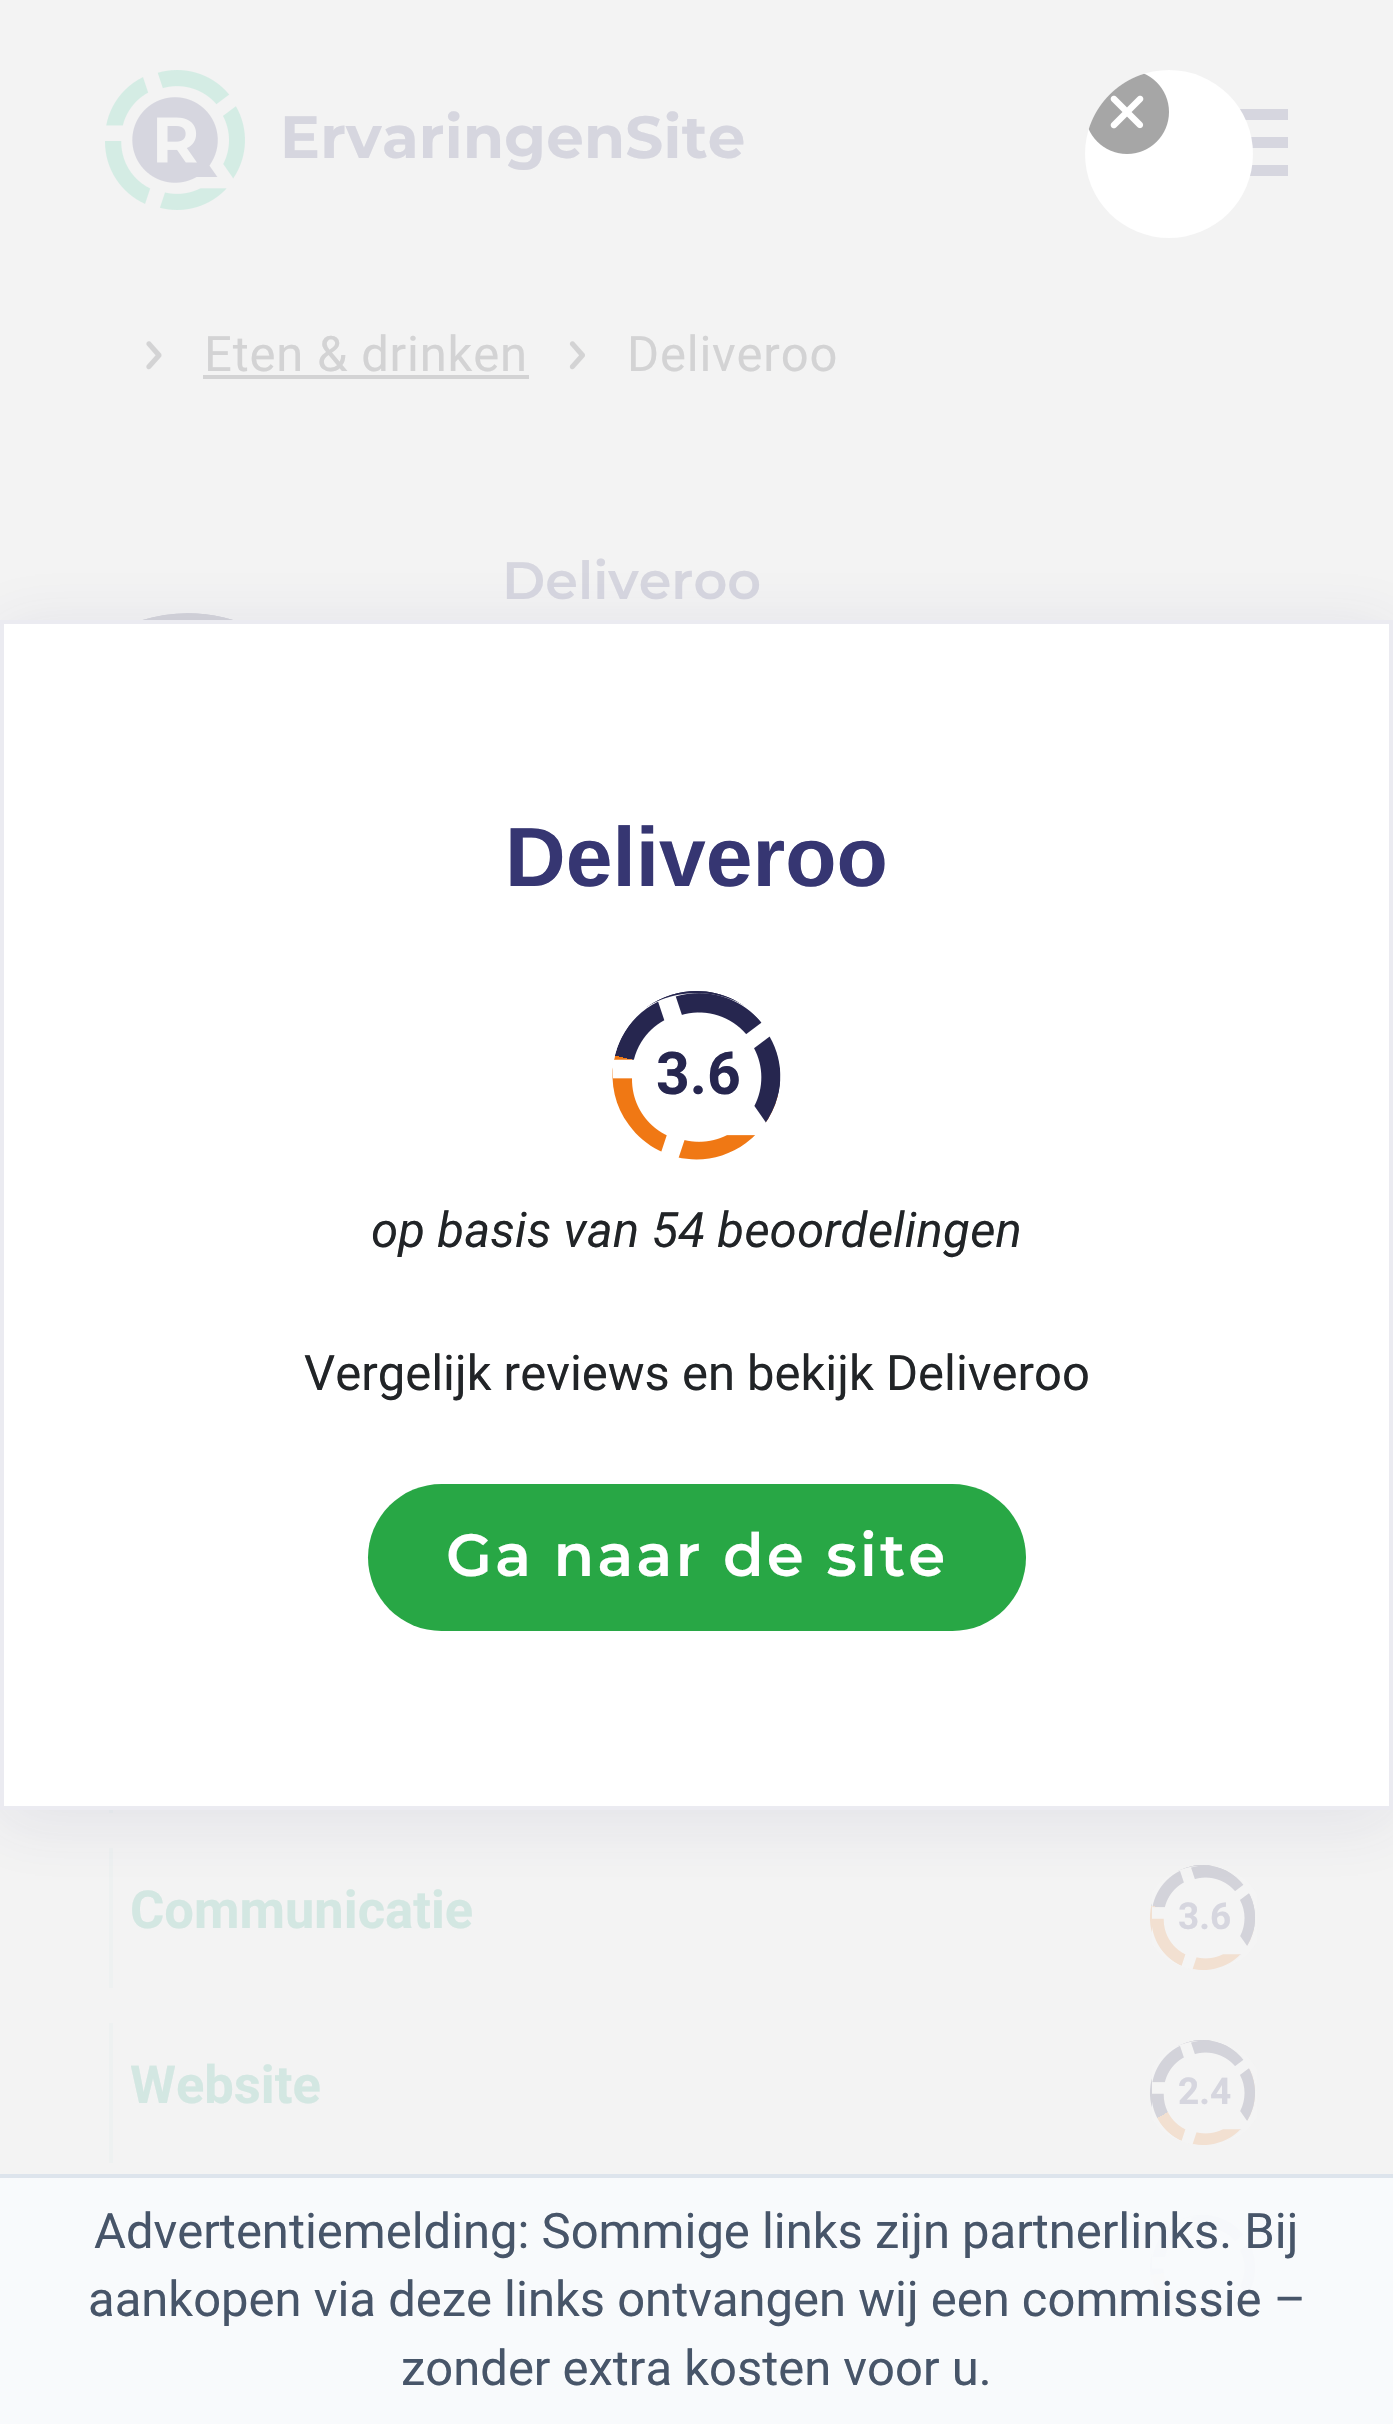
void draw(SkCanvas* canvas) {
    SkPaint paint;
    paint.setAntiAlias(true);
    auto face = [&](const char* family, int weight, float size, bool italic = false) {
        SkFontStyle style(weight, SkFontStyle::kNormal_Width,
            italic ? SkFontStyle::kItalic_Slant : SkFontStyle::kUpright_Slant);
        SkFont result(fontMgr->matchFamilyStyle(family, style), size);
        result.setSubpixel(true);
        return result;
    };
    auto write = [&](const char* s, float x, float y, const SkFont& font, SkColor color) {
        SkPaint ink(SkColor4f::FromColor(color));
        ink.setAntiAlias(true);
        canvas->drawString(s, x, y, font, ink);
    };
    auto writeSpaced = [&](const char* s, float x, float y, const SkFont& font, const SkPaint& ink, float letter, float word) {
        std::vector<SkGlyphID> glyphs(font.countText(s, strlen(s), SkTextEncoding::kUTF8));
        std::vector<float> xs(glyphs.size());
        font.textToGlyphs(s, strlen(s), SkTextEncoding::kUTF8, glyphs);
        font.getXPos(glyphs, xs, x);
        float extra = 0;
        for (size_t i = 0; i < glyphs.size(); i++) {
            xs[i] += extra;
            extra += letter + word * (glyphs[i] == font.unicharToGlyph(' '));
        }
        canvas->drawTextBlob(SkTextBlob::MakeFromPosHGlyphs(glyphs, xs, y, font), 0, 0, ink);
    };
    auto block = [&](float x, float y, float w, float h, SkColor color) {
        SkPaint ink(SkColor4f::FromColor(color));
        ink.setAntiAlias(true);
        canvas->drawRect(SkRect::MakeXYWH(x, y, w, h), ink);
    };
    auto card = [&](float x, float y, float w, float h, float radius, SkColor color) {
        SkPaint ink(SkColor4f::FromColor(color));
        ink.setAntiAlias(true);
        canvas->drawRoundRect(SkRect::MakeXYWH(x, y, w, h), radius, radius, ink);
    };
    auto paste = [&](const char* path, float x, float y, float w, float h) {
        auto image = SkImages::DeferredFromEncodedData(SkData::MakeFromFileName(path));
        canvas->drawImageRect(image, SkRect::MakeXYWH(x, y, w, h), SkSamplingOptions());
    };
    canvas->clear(SkColorSetRGB(243, 243, 243));
    paste("pic1.png", 105, 70, 140, 140);
    auto kFont1 = face("Montserrat", 700, 59.5f);
    paint.setColor(SkColorSetRGB(214, 214, 223));
    writeSpaced("ErvaringenSite", 280, 158, kFont1, paint, 0.25f, 0);
    block(1251, 137, 37, 11, SkColorSetRGB(214, 214, 223));
    block(1239, 109, 49, 11, SkColorSetRGB(214, 214, 223));
    block(1250, 165, 38, 11, SkColorSetRGB(214, 214, 223));
    paste("pic2.png", 146, 341, 16, 29);
    auto kFont2 = face("Roboto", 400, 49);
    paint.setColor(SkColorSetRGB(211, 211, 212));
    writeSpaced("Eten & drinken", 204, 371, kFont2, paint, 0.8f, 0);
    block(203, 375, 326, 4, SkColorSetRGB(211, 211, 212));
    paste("pic3.png", 569, 341, 16, 29);
    writeSpaced("Deliveroo", 627, 371, kFont2, paint, 0.8f, 0);
    auto kFont3 = face("Montserrat", 600, 52.5f);
    write("Deliveroo", 502, 599, kFont3, SkColorSetRGB(214, 214, 223));
    {
        const SkColor colors[] = {SkColorSetRGB(242, 224, 209), SkColorSetRGB(211, 211, 218), SkColorSetRGB(211, 211, 218)};
        const float stops[] = {0.5f, 0.5f, 1};
        const SkPoint ends[] = {{137, 976}, {239, 556}};
        paint.setShader(SkGradientShader::MakeLinear(ends, colors, stops, 3, SkTileMode::kClamp));
        paint.setAlpha(255);
    }
    canvas->drawPath(SkPathBuilder().moveTo(278, 890).cubicTo(210, 940, 114, 925, 64, 856).cubicTo(15, 788, 30, 692, 98, 642).cubicTo(167, 593, 262, 608, 312, 676).cubicTo(362, 745, 347, 840, 278, 890).close().detach(), paint);
    {
        const SkColor colors[] = {SkColorSetRGB(211, 211, 218), SkColorSetARGB(0, 211, 211, 218), SkColorSetARGB(0, 206, 206, 206)};
        const float stops[] = {0.5f, 0.5f, 1};
        const SkPoint ends[] = {{311, 639}, {65, 894}};
        paint.setShader(SkGradientShader::MakeLinear(ends, colors, stops, 3, SkTileMode::kClamp));
        paint.setAlpha(255);
    }
    canvas->drawPath(SkPathBuilder().moveTo(278, 890).cubicTo(210, 940, 114, 925, 64, 856).cubicTo(15, 788, 30, 692, 98, 642).cubicTo(167, 593, 262, 608, 312, 676).cubicTo(362, 745, 347, 840, 278, 890).close().detach(), paint);
    block(109, 1810, 4, 3, SkColorSetRGB(238, 241, 241));
    block(109, 1848, 4, 140, SkColorSetRGB(238, 241, 241));
    auto kFont4 = face("Roboto", 700, 52.5f);
    write("Communicatie", 130, 1928, kFont4, SkColorSetRGB(211, 231, 226));
    {
        const SkColor colors[] = {SkColorSetRGB(242, 224, 209), SkColorSetRGB(211, 211, 218), SkColorSetRGB(211, 211, 218)};
        const float stops[] = {0.5f, 0.5f, 1};
        const SkPoint ends[] = {{1185, 1990}, {1220, 1846}};
        paint.setShader(SkGradientShader::MakeLinear(ends, colors, stops, 3, SkTileMode::kClamp));
        paint.setAlpha(255);
    }
    canvas->drawPath(SkPathBuilder().moveTo(1234, 1960).cubicTo(1210, 1977, 1177, 1972, 1160, 1949).cubicTo(1143, 1925, 1148, 1892, 1172, 1875).cubicTo(1195, 1858, 1228, 1863, 1245, 1887).cubicTo(1262, 1910, 1257, 1943, 1234, 1960).close().detach(), paint);
    {
        const SkColor colors[] = {SkColorSetRGB(211, 211, 218), SkColorSetARGB(0, 211, 211, 218), SkColorSetARGB(0, 206, 206, 206)};
        const float stops[] = {0.5f, 0.5f, 1};
        const SkPoint ends[] = {{1245, 1874}, {1160, 1962}};
        paint.setShader(SkGradientShader::MakeLinear(ends, colors, stops, 3, SkTileMode::kClamp));
        paint.setAlpha(255);
    }
    canvas->drawPath(SkPathBuilder().moveTo(1234, 1960).cubicTo(1210, 1977, 1177, 1972, 1160, 1949).cubicTo(1143, 1925, 1148, 1892, 1172, 1875).cubicTo(1195, 1858, 1228, 1863, 1245, 1887).cubicTo(1262, 1910, 1257, 1943, 1234, 1960).close().detach(), paint);
    paste("pic4.png", 1152, 1866, 105, 105);
    auto kFont5 = face("Roboto", 700, 37);
    write("3.6", 1178, 1929, kFont5, SkColorSetRGB(214, 214, 223));
    block(109, 2023, 4, 140, SkColorSetRGB(238, 241, 241));
    write("Website", 130, 2103, kFont4, SkColorSetRGB(211, 231, 226));
    {
        const SkColor colors[] = {SkColorSetRGB(242, 224, 209), SkColorSetRGB(211, 211, 218), SkColorSetRGB(211, 211, 218)};
        const float stops[] = {0.5f, 0.5f, 1};
        const SkPoint ends[] = {{1231, 2143}, {1174, 2042}};
        paint.setShader(SkGradientShader::MakeLinear(ends, colors, stops, 3, SkTileMode::kClamp));
        paint.setAlpha(255);
    }
    canvas->drawPath(SkPathBuilder().moveTo(1234, 2135).cubicTo(1210, 2152, 1177, 2147, 1160, 2124).cubicTo(1143, 2100, 1148, 2067, 1172, 2050).cubicTo(1195, 2033, 1228, 2038, 1245, 2062).cubicTo(1262, 2085, 1257, 2118, 1234, 2135).close().detach(), paint);
    {
        const SkColor colors[] = {SkColorSetRGB(211, 211, 218), SkColorSetARGB(0, 211, 211, 218), SkColorSetARGB(0, 206, 206, 206)};
        const float stops[] = {0.5f, 0.5f, 1};
        const SkPoint ends[] = {{1245, 2049}, {1160, 2137}};
        paint.setShader(SkGradientShader::MakeLinear(ends, colors, stops, 3, SkTileMode::kClamp));
        paint.setAlpha(255);
    }
    canvas->drawPath(SkPathBuilder().moveTo(1234, 2135).cubicTo(1210, 2152, 1177, 2147, 1160, 2124).cubicTo(1143, 2100, 1148, 2067, 1172, 2050).cubicTo(1195, 2033, 1228, 2038, 1245, 2062).cubicTo(1262, 2085, 1257, 2118, 1234, 2135).close().detach(), paint);
    paste("pic5.png", 1152, 2041, 105, 105);
    write("2.4", 1178, 2104, kFont5, SkColorSetRGB(214, 214, 223));
    block(109, 2198, 4, 140, SkColorSetRGB(238, 241, 241));
    {
        const SkColor colors[] = {SkColorSetRGB(242, 224, 209), SkColorSetRGB(211, 211, 218), SkColorSetRGB(211, 211, 218)};
        const float stops[] = {0.5f, 0.5f, 1};
        const SkPoint ends[] = {{1213, 2338}, {1193, 2197}};
        paint.setShader(SkGradientShader::MakeLinear(ends, colors, stops, 3, SkTileMode::kClamp));
        paint.setAlpha(255);
    }
    canvas->drawPath(SkPathBuilder().moveTo(1234, 2310).cubicTo(1210, 2327, 1177, 2322, 1160, 2299).cubicTo(1143, 2275, 1148, 2242, 1172, 2225).cubicTo(1195, 2208, 1228, 2213, 1245, 2237).cubicTo(1262, 2260, 1257, 2293, 1234, 2310).close().detach(), paint);
    {
        const SkColor colors[] = {SkColorSetRGB(211, 211, 218), SkColorSetARGB(0, 211, 211, 218), SkColorSetARGB(0, 206, 206, 206)};
        const float stops[] = {0.5f, 0.5f, 1};
        const SkPoint ends[] = {{1245, 2224}, {1160, 2312}};
        paint.setShader(SkGradientShader::MakeLinear(ends, colors, stops, 3, SkTileMode::kClamp));
        paint.setAlpha(255);
    }
    canvas->drawPath(SkPathBuilder().moveTo(1234, 2310).cubicTo(1210, 2327, 1177, 2322, 1160, 2299).cubicTo(1143, 2275, 1148, 2242, 1172, 2225).cubicTo(1195, 2208, 1228, 2213, 1245, 2237).cubicTo(1262, 2260, 1257, 2293, 1234, 2310).close().detach(), paint);
    paste("pic6.png", 1152, 2216, 105, 105);
    paint.setShader(nullptr);
    paint.setColor(SK_ColorWHITE);
    canvas->drawCircle(1169, 154, 84, paint);
    paste("pic7.png", 1088, 73, 81, 81);
    paint.setColor(SkColorSetARGB(26, 54, 54, 114));
    paint.setMaskFilter(SkMaskFilter::MakeBlur(kNormal_SkBlurStyle, 31.5f));
    canvas->drawRect(SkRect::MakeXYWH(0, 630, 1393, 1190), paint);
    paint.setMaskFilter(nullptr);
    paint.setColor(SK_ColorWHITE);
    canvas->drawRect(SkRect::MakeXYWH(2, 622, 1389, 1186), paint);
    paint.setStyle(SkPaint::kStroke_Style);
    paint.setStrokeWidth(4);
    paint.setColor(SkColorSetRGB(235, 235, 241));
    canvas->drawRect(SkRect::MakeXYWH(2, 622, 1389, 1186), paint);
    auto kFont6 = face("Liberation Sans", 700, 84);
    write("Deliveroo", 505, 886, kFont6, SkColorSetRGB(54, 54, 114));
    paint.setStyle(SkPaint::kFill_Style);
    {
        const SkColor colors[] = {SkColorSetRGB(240, 120, 20), SkColorSetRGB(38, 38, 79), SkColorSetRGB(38, 38, 79)};
        const float stops[] = {0.5f, 0.5f, 1};
        const SkPoint ends[] = {{669, 1190}, {724, 960}};
        paint.setShader(SkGradientShader::MakeLinear(ends, colors, stops, 3, SkTileMode::kClamp));
        paint.setAlpha(255);
    }
    canvas->drawPath(SkPathBuilder().moveTo(746, 1143).cubicTo(708, 1171, 656, 1162, 629, 1125).cubicTo(601, 1087, 610, 1035, 647, 1007).cubicTo(685, 980, 737, 988, 764, 1026).cubicTo(792, 1064, 783, 1116, 746, 1143).close().detach(), paint);
    {
        const SkColor colors[] = {SkColorSetRGB(38, 38, 79), SkColorSetARGB(0, 38, 38, 79), SkColorSetARGB(0, 0, 0, 0)};
        const float stops[] = {0.5f, 0.5f, 1};
        const SkPoint ends[] = {{764, 1005}, {629, 1145}};
        paint.setShader(SkGradientShader::MakeLinear(ends, colors, stops, 3, SkTileMode::kClamp));
        paint.setAlpha(255);
    }
    canvas->drawPath(SkPathBuilder().moveTo(746, 1143).cubicTo(708, 1171, 656, 1162, 629, 1125).cubicTo(601, 1087, 610, 1035, 647, 1007).cubicTo(685, 980, 737, 988, 764, 1026).cubicTo(792, 1064, 783, 1116, 746, 1143).close().detach(), paint);
    paste("pic8.png", 613, 993, 168, 165);
    auto kFont7 = face("Roboto", 700, 59);
    write("3.6", 656, 1094, kFont7, SkColorSetRGB(38, 38, 79));
    auto kFont8 = face("Roboto", 400, 49, true);
    write("op basis van 54 beoordelingen", 371, 1247, kFont8, SkColorSetRGB(33, 36, 39));
    write("Vergelijk reviews en bekijk Deliveroo", 304, 1390, kFont2, SkColorSetRGB(33, 36, 39));
    card(368, 1484, 658, 147, 73.5f, SkColorSetRGB(40, 167, 69));
    auto kFont9 = face("Montserrat", 600, 59.5f);
    paint.setShader(nullptr);
    paint.setColor(SK_ColorWHITE);
    writeSpaced("Ga naar de site", 446, 1576, kFont9, paint, 3, 0);
    block(0, 2178, 1393, 246, SkColorSetARGB(242, 248, 250, 252));
    block(0, 2174, 1393, 4, SkColorSetRGB(221, 228, 236));
    write("Advertentiemelding: Sommige links zijn partnerlinks. Bij", 94, 2248, kFont2, SkColorSetRGB(71, 85, 105));
    write("aankopen via deze links ontvangen wij een commissie –", 88, 2316, kFont2, SkColorSetRGB(71, 85, 105));
    write("zonder extra kosten voor u.", 401, 2385, kFont2, SkColorSetRGB(71, 85, 105));
}
